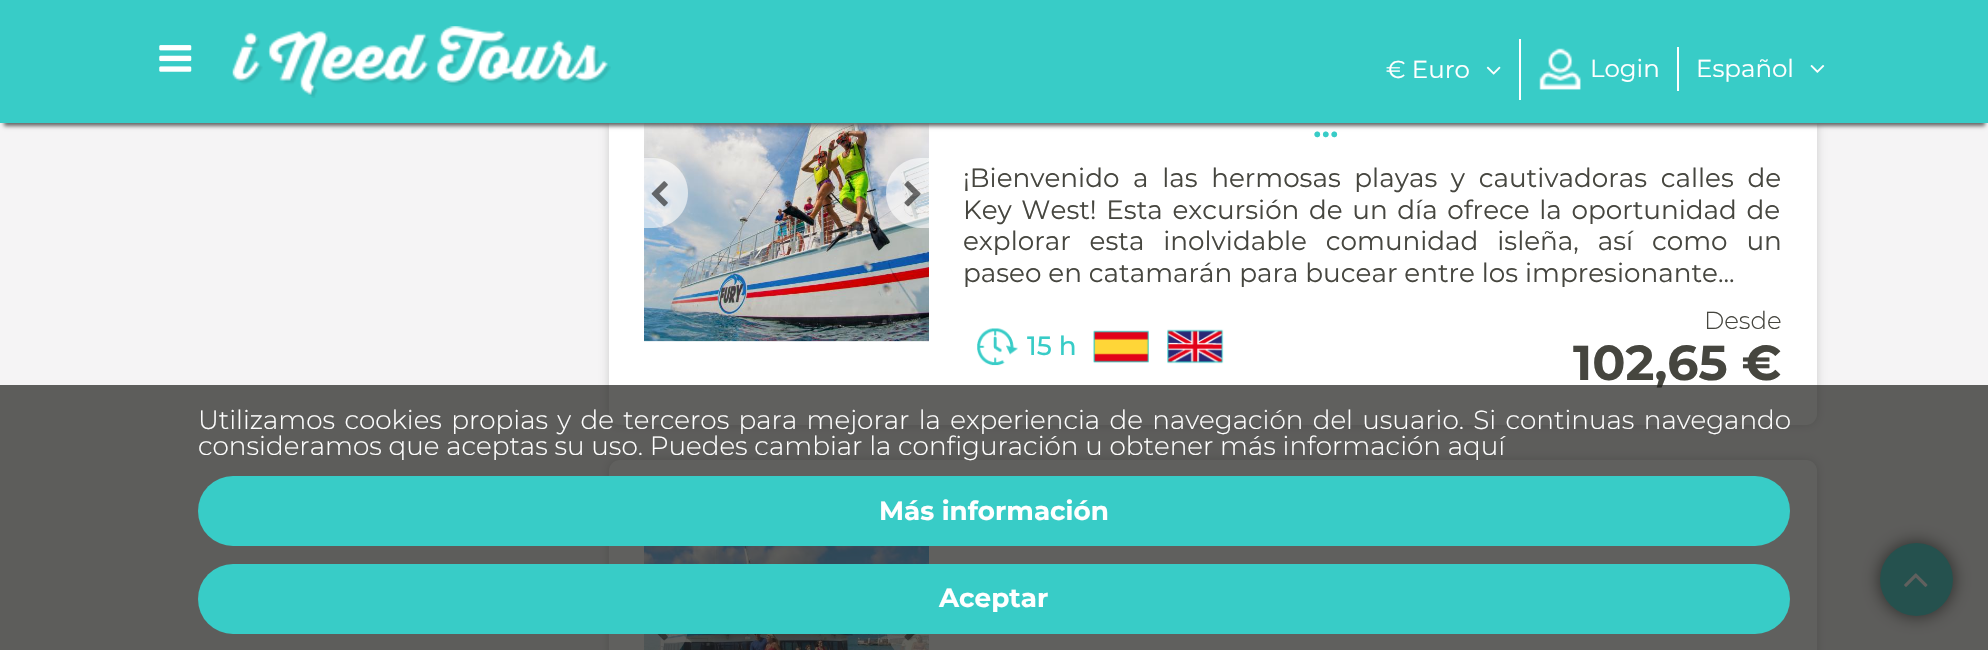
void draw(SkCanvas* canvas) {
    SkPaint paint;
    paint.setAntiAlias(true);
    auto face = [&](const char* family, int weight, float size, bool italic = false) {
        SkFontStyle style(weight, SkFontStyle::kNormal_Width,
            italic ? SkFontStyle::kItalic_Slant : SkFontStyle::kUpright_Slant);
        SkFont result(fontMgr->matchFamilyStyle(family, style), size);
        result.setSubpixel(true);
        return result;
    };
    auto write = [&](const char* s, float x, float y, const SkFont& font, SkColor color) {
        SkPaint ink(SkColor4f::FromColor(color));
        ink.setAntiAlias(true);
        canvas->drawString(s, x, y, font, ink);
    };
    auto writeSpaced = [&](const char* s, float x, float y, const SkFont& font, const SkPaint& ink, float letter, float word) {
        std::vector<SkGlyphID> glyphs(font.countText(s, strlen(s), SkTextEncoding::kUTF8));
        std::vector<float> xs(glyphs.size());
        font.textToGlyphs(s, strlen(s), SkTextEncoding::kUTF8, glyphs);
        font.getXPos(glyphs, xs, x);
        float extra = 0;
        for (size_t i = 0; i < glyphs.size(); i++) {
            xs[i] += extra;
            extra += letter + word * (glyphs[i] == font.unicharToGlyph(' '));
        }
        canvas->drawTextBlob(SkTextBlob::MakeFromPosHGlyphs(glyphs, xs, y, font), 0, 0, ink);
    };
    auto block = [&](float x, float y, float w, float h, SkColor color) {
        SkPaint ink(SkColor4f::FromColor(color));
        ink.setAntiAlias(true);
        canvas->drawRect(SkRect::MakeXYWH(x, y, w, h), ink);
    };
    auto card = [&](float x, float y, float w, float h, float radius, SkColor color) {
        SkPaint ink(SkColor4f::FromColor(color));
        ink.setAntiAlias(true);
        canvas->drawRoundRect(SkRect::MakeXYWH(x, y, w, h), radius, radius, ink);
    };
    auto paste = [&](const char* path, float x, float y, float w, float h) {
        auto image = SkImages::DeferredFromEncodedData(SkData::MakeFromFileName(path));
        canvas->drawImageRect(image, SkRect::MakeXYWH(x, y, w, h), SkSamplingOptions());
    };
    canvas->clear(SkColorSetRGB(245, 244, 245));
    paint.setColor(SkColorSetRGB(204, 204, 204));
    paint.setMaskFilter(SkMaskFilter::MakeBlur(kNormal_SkBlurStyle, 5));
    canvas->drawRoundRect(SkRect::MakeXYWH(609, 26, 1208, 399), 11, 11, paint);
    paint.setMaskFilter(nullptr);
    card(609, 26, 1208, 399, 11, SK_ColorWHITE);
    paste("pic6.png", 644, 123, 285, 219);
    paint.setColor(SkColorSetRGB(102, 102, 102));
    paint.setMaskFilter(SkMaskFilter::MakeBlur(kNormal_SkBlurStyle, 2));
    canvas->drawRect(SkRect::MakeXYWH(4, 11, 1981, 115), paint);
    paint.setMaskFilter(nullptr);
    block(0, 0, 1988, 123, SkColorSetRGB(56, 204, 199));
    paste("pic1.png", 159, 45, 33, 27);
    paste("pic2.png", 232, 26, 379, 72);
    block(1519, 39, 2, 61, SK_ColorWHITE);
    auto kFont1 = face("Montserrat", 400, 24.5f);
    write("€ Euro", 1386, 78, kFont1, SK_ColorWHITE);
    paste("pic3.png", 1486, 66, 15, 9);
    block(1677, 47, 2, 44, SK_ColorWHITE);
    paste("pic4.png", 1539, 48, 42, 42);
    write("Login", 1590, 77, kFont1, SK_ColorWHITE);
    write("Español", 1696, 77, kFont1, SK_ColorWHITE);
    paste("pic5.png", 1810, 65, 15, 8);
    paint.setColor(SkColorSetARGB(153, 255, 255, 255));
    canvas->drawPath(SkPathBuilder().moveTo(644, 158).lineTo(653, 158).cubicTo(672.5f, 158, 688, 173.5f, 688, 193).cubicTo(688, 212.5f, 672.5f, 228, 653, 228).lineTo(644, 228).close().detach(), paint);
    paste("pic7.png", 651, 181, 17, 26);
    canvas->drawPath(SkPathBuilder().moveTo(921, 158).lineTo(929, 158).lineTo(929, 228).lineTo(921, 228).cubicTo(901.5f, 228, 886, 212.5f, 886, 193).cubicTo(886, 173.5f, 901.5f, 158, 921, 158).close().detach(), paint);
    paste("pic8.png", 904, 181, 17, 26);
    auto kFont2 = face("Montserrat", 600, 35);
    write("...", 1313, 137, kFont2, SkColorSetRGB(56, 204, 199));
    auto kFont3 = face("Montserrat", 400, 26.25f);
    paint.setColor(SkColorSetRGB(70, 70, 63));
    writeSpaced("¡Bienvenido a las hermosas playas y cautivadoras calles de", 963, 187, kFont3, paint, 0, 6.75f);
    writeSpaced("Key West! Esta excursión de un día ofrece la oportunidad de", 963, 219, kFont3, paint, 0, 2.75f);
    writeSpaced("explorar esta inolvidable comunidad isleña, así como un", 963, 250, kFont3, paint, 0, 12);
    write("paseo en catamarán para bucear entre los impresionante...", 963, 282, kFont3, SkColorSetRGB(70, 70, 63));
    paste("pic9.png", 977, 328, 41, 38);
    auto kFont4 = face("Montserrat", 500, 26.25f);
    write("15 h", 1027, 355, kFont4, SkColorSetRGB(56, 204, 199));
    paste("pic10.png", 1093, 330, 56, 33);
    paste("pic11.png", 1167, 329, 57, 35);
    auto kFont5 = face("Montserrat", 300, 24.5f);
    write("Desde", 1704, 329, kFont5, SkColorSetRGB(70, 70, 63));
    auto kFont6 = face("Montserrat", 700, 49);
    write("102,65 €", 1573, 380, kFont6, SkColorSetRGB(70, 70, 63));
    paint.setColor(SkColorSetRGB(204, 204, 204));
    paint.setMaskFilter(SkMaskFilter::MakeBlur(kNormal_SkBlurStyle, 5));
    canvas->drawRoundRect(SkRect::MakeXYWH(609, 460, 1208, 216), 11, 11, paint);
    paint.setMaskFilter(nullptr);
    card(609, 460, 1208, 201, 11, SK_ColorWHITE);
    paste("pic12.png", 644, 546, 285, 104);
    paint.setColor(SkColorSetARGB(153, 255, 255, 255));
    canvas->drawPath(SkPathBuilder().moveTo(644, 592).lineTo(653, 592).cubicTo(672.5f, 592, 688, 607.5f, 688, 627).cubicTo(688, 646.5f, 672.5f, 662, 653, 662).lineTo(644, 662).close().detach(), paint);
    paste("pic13.png", 657, 634, 11, 7);
    canvas->drawPath(SkPathBuilder().moveTo(921, 592).lineTo(929, 592).lineTo(929, 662).lineTo(921, 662).cubicTo(901.5f, 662, 886, 646.5f, 886, 627).cubicTo(886, 607.5f, 901.5f, 592, 921, 592).close().detach(), paint);
    paste("pic14.png", 904, 634, 11, 7);
    paint.setColor(SkColorSetRGB(68, 68, 68));
    paint.setMaskFilter(SkMaskFilter::MakeBlur(kNormal_SkBlurStyle, 9));
    canvas->drawRoundRect(SkRect::MakeXYWH(1880, 543, 73, 73), 36.5f, 36.5f, paint);
    paint.setMaskFilter(nullptr);
    paint.setColor(SkColorSetRGB(56, 204, 199));
    canvas->drawCircle(1916.5f, 579.5f, 36.5f, paint);
    paste("pic15.png", 1904, 573, 24, 14);
    block(0, 385, 1988, 265, SkColorSetARGB(179, 28, 29, 26));
    auto kFont7 = face("Montserrat", 300, 26.25f);
    paint.setColor(SK_ColorWHITE);
    writeSpaced("Utilizamos cookies propias y de terceros para mejorar la experiencia de navegación del usuario. Si continuas navegando", 198, 429, kFont7, paint, 0, 2.6f);
    write("consideramos que aceptas su uso. Puedes cambiar la configuración u obtener más información aquí", 198, 455, kFont7, SK_ColorWHITE);
    card(198, 476, 1592, 70, 35, SkColorSetRGB(56, 204, 199));
    auto kFont8 = face("Montserrat", 700, 26.25f);
    write("Más información", 879, 520, kFont8, SK_ColorWHITE);
    card(198, 564, 1592, 70, 35, SkColorSetRGB(56, 204, 199));
    write("Aceptar", 939, 607, kFont8, SK_ColorWHITE);
}
